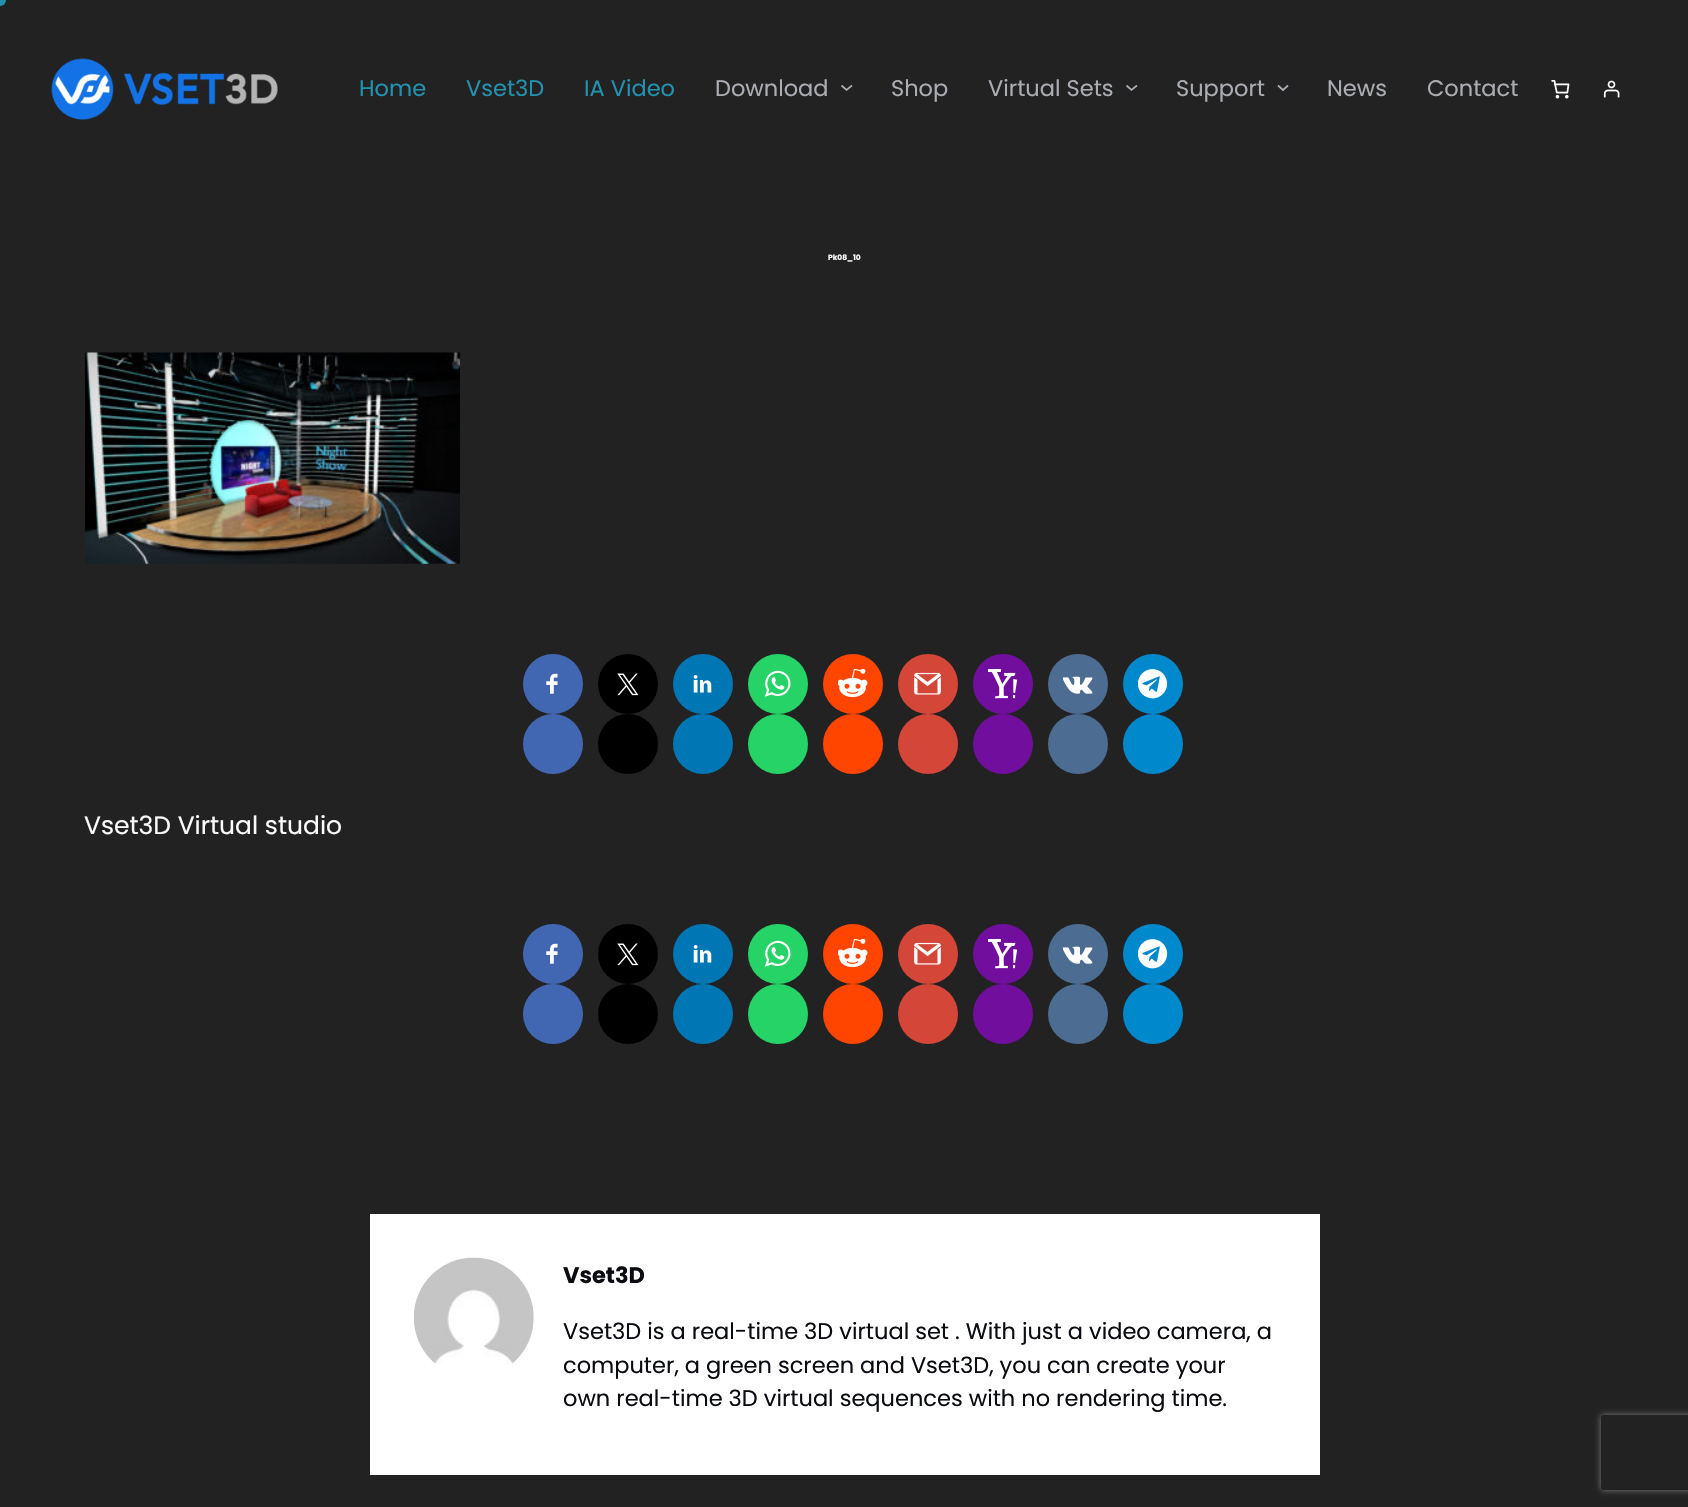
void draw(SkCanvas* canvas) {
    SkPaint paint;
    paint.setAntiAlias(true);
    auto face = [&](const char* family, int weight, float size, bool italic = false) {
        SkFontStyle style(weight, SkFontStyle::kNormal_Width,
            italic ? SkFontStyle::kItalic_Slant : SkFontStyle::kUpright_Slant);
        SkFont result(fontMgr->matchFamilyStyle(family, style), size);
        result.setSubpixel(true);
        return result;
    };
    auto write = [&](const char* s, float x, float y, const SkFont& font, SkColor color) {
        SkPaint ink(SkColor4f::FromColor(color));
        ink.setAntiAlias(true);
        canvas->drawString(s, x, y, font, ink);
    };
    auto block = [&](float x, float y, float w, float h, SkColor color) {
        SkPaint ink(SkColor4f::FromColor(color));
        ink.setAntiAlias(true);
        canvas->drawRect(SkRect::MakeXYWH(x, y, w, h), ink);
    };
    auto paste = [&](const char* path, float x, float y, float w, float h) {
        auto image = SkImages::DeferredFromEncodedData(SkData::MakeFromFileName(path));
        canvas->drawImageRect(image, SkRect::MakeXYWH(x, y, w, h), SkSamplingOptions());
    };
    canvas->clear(SkColorSetRGB(34, 34, 34));
    paint.setColor(SkColorSetRGB(34, 146, 177));
    canvas->drawCircle(0, 0, 6, paint);
    paste("pic1.png", 51, 58, 227, 62);
    auto kFont1 = face("Poppins", 400, 22.5f);
    write("Home", 359, 96, kFont1, SkColorSetRGB(34, 146, 177));
    write("Vset3D", 466, 96, kFont1, SkColorSetRGB(34, 146, 177));
    write("IA Video", 584, 96, kFont1, SkColorSetRGB(34, 146, 177));
    write("Download", 715, 96, kFont1, SkColorSetRGB(171, 173, 179));
    paint.setStyle(SkPaint::kStroke_Style);
    paint.setStrokeWidth(1.7f);
    paint.setColor(SkColorSetRGB(171, 173, 179));
    canvas->drawPath(SkPathBuilder().moveTo(841.5f, 85.5f).lineTo(846.5f, 90).lineTo(852, 85.5f).detach(), paint);
    write("Shop", 891, 96, kFont1, SkColorSetRGB(171, 173, 179));
    write("Virtual Sets", 988, 96, kFont1, SkColorSetRGB(171, 173, 179));
    canvas->drawPath(SkPathBuilder().moveTo(1126.5f, 85.5f).lineTo(1131.5f, 90).lineTo(1137, 85.5f).detach(), paint);
    write("Support", 1176, 96, kFont1, SkColorSetRGB(171, 173, 179));
    canvas->drawPath(SkPathBuilder().moveTo(1278, 85.5f).lineTo(1283, 90).lineTo(1288, 85.5f).detach(), paint);
    write("News", 1327, 96, kFont1, SkColorSetRGB(171, 173, 179));
    write("Contact", 1427, 96, kFont1, SkColorSetRGB(171, 173, 179));
    paste("pic2.png", 1551, 80, 19, 19);
    paste("pic3.png", 1603, 80, 17, 18);
    auto kFont2 = face("Poppins", 700, 7.5f);
    write("Pk08_10", 828, 260, kFont2, SkColorSetRGB(250, 250, 250));
    paste("pic4.png", 85, 352, 375, 212);
    paint.setStyle(SkPaint::kFill_Style);
    paint.setColor(SkColorSetRGB(66, 103, 178));
    canvas->drawCircle(553, 684, 30, paint);
    paste("pic5.png", 546, 673, 12, 21);
    canvas->drawCircle(553, 744, 30, paint);
    paint.setColor(SK_ColorBLACK);
    canvas->drawCircle(628, 684, 30, paint);
    paste("pic6.png", 617, 673, 22, 23);
    canvas->drawCircle(628, 744, 30, paint);
    paint.setColor(SkColorSetRGB(0, 119, 181));
    canvas->drawCircle(703, 684, 30, paint);
    paste("pic7.png", 693, 675, 19, 18);
    canvas->drawCircle(703, 744, 30, paint);
    paint.setColor(SkColorSetRGB(37, 211, 102));
    canvas->drawCircle(778, 684, 30, paint);
    paste("pic8.png", 764, 670, 27, 27);
    canvas->drawCircle(778, 744, 30, paint);
    paint.setColor(SkColorSetRGB(255, 69, 0));
    canvas->drawCircle(853, 684, 30, paint);
    paste("pic9.png", 838, 669, 30, 29);
    canvas->drawCircle(853, 744, 30, paint);
    paint.setColor(SkColorSetRGB(212, 70, 56));
    canvas->drawCircle(928, 684, 30, paint);
    paste("pic10.png", 914, 672, 27, 23);
    canvas->drawCircle(928, 744, 30, paint);
    paint.setColor(SkColorSetRGB(114, 14, 158));
    canvas->drawCircle(1003, 684, 30, paint);
    paste("pic11.png", 988, 669, 30, 30);
    canvas->drawCircle(1003, 744, 30, paint);
    paint.setColor(SkColorSetRGB(76, 108, 145));
    canvas->drawCircle(1078, 684, 30, paint);
    paste("pic12.png", 1063, 676, 30, 18);
    canvas->drawCircle(1078, 744, 30, paint);
    paint.setColor(SkColorSetRGB(0, 136, 204));
    canvas->drawCircle(1153, 684, 30, paint);
    paste("pic13.png", 1138, 669, 30, 30);
    canvas->drawCircle(1153, 744, 30, paint);
    auto kFont3 = face("Poppins", 400, 25);
    write("Vset3D Virtual studio", 84, 834, kFont3, SkColorSetRGB(250, 250, 250));
    paint.setColor(SkColorSetRGB(66, 103, 178));
    canvas->drawCircle(553, 954, 30, paint);
    paste("pic5.png", 546, 943, 12, 21);
    canvas->drawCircle(553, 1014, 30, paint);
    paint.setColor(SK_ColorBLACK);
    canvas->drawCircle(628, 954, 30, paint);
    paste("pic6.png", 617, 943, 22, 23);
    canvas->drawCircle(628, 1014, 30, paint);
    paint.setColor(SkColorSetRGB(0, 119, 181));
    canvas->drawCircle(703, 954, 30, paint);
    paste("pic7.png", 693, 945, 19, 18);
    canvas->drawCircle(703, 1014, 30, paint);
    paint.setColor(SkColorSetRGB(37, 211, 102));
    canvas->drawCircle(778, 954, 30, paint);
    paste("pic8.png", 764, 940, 27, 27);
    canvas->drawCircle(778, 1014, 30, paint);
    paint.setColor(SkColorSetRGB(255, 69, 0));
    canvas->drawCircle(853, 954, 30, paint);
    paste("pic9.png", 838, 939, 30, 29);
    canvas->drawCircle(853, 1014, 30, paint);
    paint.setColor(SkColorSetRGB(212, 70, 56));
    canvas->drawCircle(928, 954, 30, paint);
    paste("pic10.png", 914, 942, 27, 23);
    canvas->drawCircle(928, 1014, 30, paint);
    paint.setColor(SkColorSetRGB(114, 14, 158));
    canvas->drawCircle(1003, 954, 30, paint);
    paste("pic11.png", 988, 939, 30, 30);
    canvas->drawCircle(1003, 1014, 30, paint);
    paint.setColor(SkColorSetRGB(76, 108, 145));
    canvas->drawCircle(1078, 954, 30, paint);
    paste("pic12.png", 1063, 946, 30, 18);
    canvas->drawCircle(1078, 1014, 30, paint);
    paint.setColor(SkColorSetRGB(0, 136, 204));
    canvas->drawCircle(1153, 954, 30, paint);
    paste("pic13.png", 1138, 939, 30, 30);
    canvas->drawCircle(1153, 1014, 30, paint);
    block(370, 1214, 950, 261, SK_ColorWHITE);
    paste("pic14.png", 413, 1257, 121, 108);
    auto kFont4 = face("Poppins", 700, 22.5f);
    write("Vset3D", 563, 1283, kFont4, SkColorSetRGB(10, 12, 17));
    write("Vset3D is a real-time 3D virtual set . With just a video camera, a", 563, 1339, kFont1, SkColorSetRGB(10, 12, 17));
    write("computer, a green screen and Vset3D, you can create your", 563, 1373, kFont1, SkColorSetRGB(10, 12, 17));
    write("own real-time 3D virtual sequences with no rendering time.", 563, 1406, kFont1, SkColorSetRGB(10, 12, 17));
    canvas->save();
    canvas->clipPath(SkPathBuilder(SkPathFillType::kEvenOdd).moveTo(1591, 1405).lineTo(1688, 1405).lineTo(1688, 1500).lineTo(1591, 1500).close().moveTo(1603.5f, 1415).lineTo(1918.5f, 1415).cubicTo(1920, 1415, 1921, 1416, 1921, 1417.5f).lineTo(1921, 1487.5f).cubicTo(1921, 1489, 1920, 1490, 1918.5f, 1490).lineTo(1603.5f, 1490).cubicTo(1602, 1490, 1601, 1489, 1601, 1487.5f).lineTo(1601, 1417.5f).cubicTo(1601, 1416, 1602, 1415, 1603.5f, 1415).close().detach(), true);
    paint.setColor(SkColorSetRGB(128, 128, 128));
    paint.setMaskFilter(SkMaskFilter::MakeBlur(kNormal_SkBlurStyle, 3));
    canvas->drawRoundRect(SkRect::MakeXYWH(1601, 1415, 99, 75), 2.5f, 2.5f, paint);
    paint.setMaskFilter(nullptr);
    canvas->restore();
}
